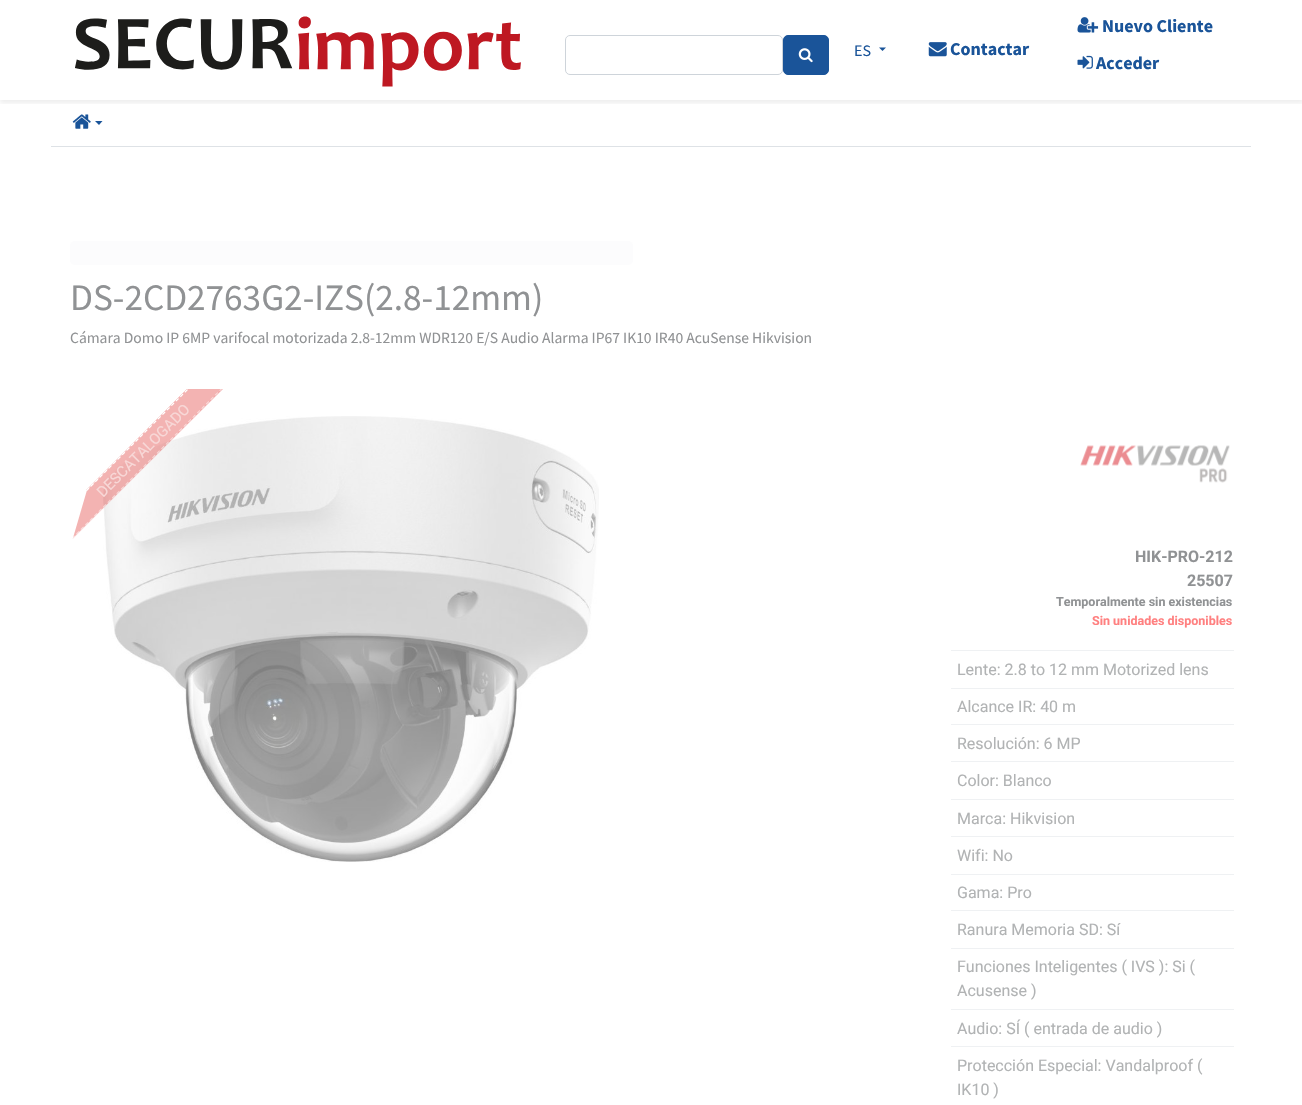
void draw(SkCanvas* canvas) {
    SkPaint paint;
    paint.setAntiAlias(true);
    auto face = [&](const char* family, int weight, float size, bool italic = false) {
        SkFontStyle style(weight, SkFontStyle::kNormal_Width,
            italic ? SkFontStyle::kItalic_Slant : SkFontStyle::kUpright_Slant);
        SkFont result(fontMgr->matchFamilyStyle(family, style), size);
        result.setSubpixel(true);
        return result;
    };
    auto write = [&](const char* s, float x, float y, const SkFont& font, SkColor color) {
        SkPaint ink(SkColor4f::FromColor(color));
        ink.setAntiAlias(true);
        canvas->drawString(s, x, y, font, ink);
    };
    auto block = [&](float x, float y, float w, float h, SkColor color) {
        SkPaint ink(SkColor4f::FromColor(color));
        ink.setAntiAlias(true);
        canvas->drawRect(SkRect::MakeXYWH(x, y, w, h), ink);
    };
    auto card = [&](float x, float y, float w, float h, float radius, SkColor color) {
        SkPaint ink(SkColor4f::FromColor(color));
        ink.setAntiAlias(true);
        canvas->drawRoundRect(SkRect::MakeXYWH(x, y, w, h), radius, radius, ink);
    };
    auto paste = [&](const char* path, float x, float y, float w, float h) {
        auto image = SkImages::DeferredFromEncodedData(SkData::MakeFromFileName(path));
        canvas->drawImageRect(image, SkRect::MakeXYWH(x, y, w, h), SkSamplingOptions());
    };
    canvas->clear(SK_ColorWHITE);
    canvas->save();
    canvas->clipRect(SkRect::MakeXYWH(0, 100, 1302, 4));
    paint.setColor(SkColorSetARGB(18, 0, 0, 0));
    paint.setMaskFilter(SkMaskFilter::MakeBlur(kNormal_SkBlurStyle, 2.5f));
    canvas->drawRect(SkRect::MakeXYWH(0, 3, 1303, 100), paint);
    paint.setMaskFilter(nullptr);
    canvas->restore();
    paste("pic1.png", 75, 16, 446, 71);
    paint.setStyle(SkPaint::kStroke_Style);
    paint.setStrokeWidth(1);
    paint.setColor(SkColorSetRGB(206, 212, 218));
    canvas->drawRoundRect(SkRect::MakeXYWH(565.5f, 35.5f, 217, 39), 4.5f, 4.5f, paint);
    paint.setStyle(SkPaint::kFill_Style);
    paint.setColor(SkColorSetRGB(26, 84, 153));
    canvas->drawRoundRect(SkRect::MakeXYWH(783.5f, 35.5f, 45, 39), 4.5f, 4.5f, paint);
    paint.setStyle(SkPaint::kStroke_Style);
    canvas->drawRoundRect(SkRect::MakeXYWH(783.5f, 35.5f, 45, 39), 4.5f, 4.5f, paint);
    paste("pic2.png", 798, 48, 15, 15);
    auto kFont1 = face("Source Sans Pro", 400, 16);
    write("ES", 854, 56, kFont1, SkColorSetRGB(26, 84, 153));
    paint.setStyle(SkPaint::kFill_Style);
    canvas->drawPath(SkPathBuilder().moveTo(879, 47.5f).lineTo(886, 47.5f).lineTo(882.5f, 51).close().detach(), paint);
    paste("pic3.png", 928, 42, 19, 15);
    auto kFont2 = face("Source Sans Pro", 700, 18);
    write("Contactar", 950, 55, kFont2, SkColorSetRGB(26, 84, 153));
    paste("pic4.png", 1077, 17, 22, 16);
    write("Nuevo Cliente", 1102, 32, kFont2, SkColorSetRGB(26, 84, 153));
    paste("pic5.png", 1077, 55, 16, 14);
    write("Acceder", 1096, 69, kFont2, SkColorSetRGB(26, 84, 153));
    block(51, 146, 1200, 1, SkColorSetRGB(222, 226, 230));
    paste("pic6.png", 72, 114, 19, 15);
    canvas->drawPath(SkPathBuilder().moveTo(95, 121).lineTo(102.5f, 121).lineTo(99, 125).close().detach(), paint);
    card(70, 241, 563, 24, 5, SkColorSetRGB(252, 252, 253));
    auto kFont3 = face("Source Sans Pro", 400, 37.25f);
    write("DS-2CD2763G2-IZS(2.8-12mm)", 70, 310, kFont3, SkColorSetRGB(144, 146, 148));
    auto kFont4 = face("Source Sans Pro", 400, 15.55f);
    write("Cámara Domo IP 6MP varifocal motorizada 2.8-12mm WDR120 E/S Audio Alarma IP67 IK10 IR40 AcuSense Hikvision", 70, 343, kFont4, SkColorSetRGB(144, 146, 148));
    paste("pic7.png", 103, 416, 496, 446);
    canvas->save();
    canvas->clipRect(SkRect::MakeXYWH(70, 389, 563, 500));
    canvas->clipPath(SkPathBuilder().moveTo(231.5f, 380).lineTo(190, 386).lineTo(86.5f, 489.5f).lineTo(72.5f, 539).close().detach(), true);
    paint.setStyle(SkPaint::kStroke_Style);
    paint.setStrokeWidth(3.8f);
    paint.setColor(SkColorSetARGB(89, 221, 38, 34));
    canvas->drawPath(SkPathBuilder().moveTo(52, 521.5f).lineTo(214, 359.5f).lineTo(234, 380).lineTo(72.5f, 541.5f).close().detach(), paint);
    canvas->restore();
    canvas->save();
    canvas->clipRect(SkRect::MakeXYWH(70, 389, 563, 500));
    paint.setStyle(SkPaint::kFill_Style);
    canvas->drawPath(SkPathBuilder().moveTo(232, 380).lineTo(73, 538).lineTo(87, 490).lineTo(190, 386).close().detach(), paint);
    canvas->restore();
    canvas->save();
    canvas->clipRect(SkRect::MakeXYWH(70, 389, 563, 500));
    canvas->clipPath(SkPathBuilder().moveTo(231.5f, 380).lineTo(190, 386).lineTo(86.5f, 489.5f).lineTo(72.5f, 539).close().detach(), true);
    paint.setStyle(SkPaint::kStroke_Style);
    paint.setStrokeWidth(1.3f);
    paint.setColor(SK_ColorWHITE);
    paint.setPathEffect(SkDashPathEffect::Make({{3.75f, 2.58f}}, 0));
    canvas->drawPath(SkPathBuilder().moveTo(55, 522).lineTo(214.5f, 362.5f).detach(), paint);
    paint.setPathEffect(nullptr);
    paint.setColor(SkColorSetARGB(128, 255, 255, 255));
    paint.setPathEffect(SkDashPathEffect::Make({{3.75f, 2.58f}}, 0));
    canvas->drawPath(SkPathBuilder().moveTo(72, 538.5f).lineTo(231, 379.5f).detach(), paint);
    paint.setPathEffect(nullptr);
    canvas->restore();
    auto kFont5 = face("Roboto", 400, 15);
    canvas->save();
    canvas->rotate(-45, 103, 498);
    write("DESCATALOGADO", 103, 498, kFont5, SkColorSetRGB(248, 216, 215));
    canvas->restore();
    paste("pic8.png", 1080, 445, 150, 38);
    auto kFont6 = face("Roboto", 700, 16);
    write("HIK-PRO-212", 1135, 562, kFont6, SkColorSetRGB(144, 146, 148));
    write("25507", 1187, 586, kFont6, SkColorSetRGB(144, 146, 148));
    auto kFont7 = face("Roboto", 700, 12.5f);
    write("Temporalmente sin existencias", 1056, 606, kFont7, SkColorSetRGB(144, 146, 148));
    write("Sin unidades disponibles", 1092, 625, kFont7, SkColorSetRGB(255, 128, 128));
    block(951, 650, 283, 1, SkColorSetRGB(239, 241, 243));
    auto kFont8 = face("Roboto", 400, 16);
    write("Lente: 2.8 to 12 mm Motorized lens", 957, 675, kFont8, SkColorSetRGB(177, 179, 180));
    block(951, 688, 283, 1, SkColorSetRGB(239, 241, 243));
    write("Alcance IR: 40 m", 957, 712, kFont8, SkColorSetRGB(177, 179, 180));
    block(951, 724, 283, 1, SkColorSetRGB(239, 241, 243));
    write("Resolución: 6 MP", 957, 749, kFont8, SkColorSetRGB(177, 179, 180));
    block(951, 761, 283, 1, SkColorSetRGB(239, 241, 243));
    write("Color: Blanco", 957, 786, kFont8, SkColorSetRGB(177, 179, 180));
    block(951, 799, 283, 1, SkColorSetRGB(239, 241, 243));
    write("Marca: Hikvision", 957, 824, kFont8, SkColorSetRGB(177, 179, 180));
    block(951, 836, 283, 1, SkColorSetRGB(239, 241, 243));
    write("Wifi: No", 957, 861, kFont8, SkColorSetRGB(177, 179, 180));
    block(951, 874, 283, 1, SkColorSetRGB(239, 241, 243));
    write("Gama: Pro", 957, 898, kFont8, SkColorSetRGB(177, 179, 180));
    block(951, 910, 283, 1, SkColorSetRGB(239, 241, 243));
    write("Ranura Memoria SD: Sí", 957, 935, kFont8, SkColorSetRGB(177, 179, 180));
    block(951, 948, 283, 1, SkColorSetRGB(239, 241, 243));
    write("Funciones Inteligentes ( IVS ): Si (", 957, 972, kFont8, SkColorSetRGB(177, 179, 180));
    write("Acusense )", 957, 996, kFont8, SkColorSetRGB(177, 179, 180));
    block(951, 1009, 283, 1, SkColorSetRGB(239, 241, 243));
    write("Audio: SÍ ( entrada de audio )", 957, 1034, kFont8, SkColorSetRGB(177, 179, 180));
    block(951, 1046, 283, 1, SkColorSetRGB(239, 241, 243));
    write("Protección Especial: Vandalproof (", 957, 1071, kFont8, SkColorSetRGB(177, 179, 180));
    write("IK10 )", 957, 1095, kFont8, SkColorSetRGB(177, 179, 180));
}
